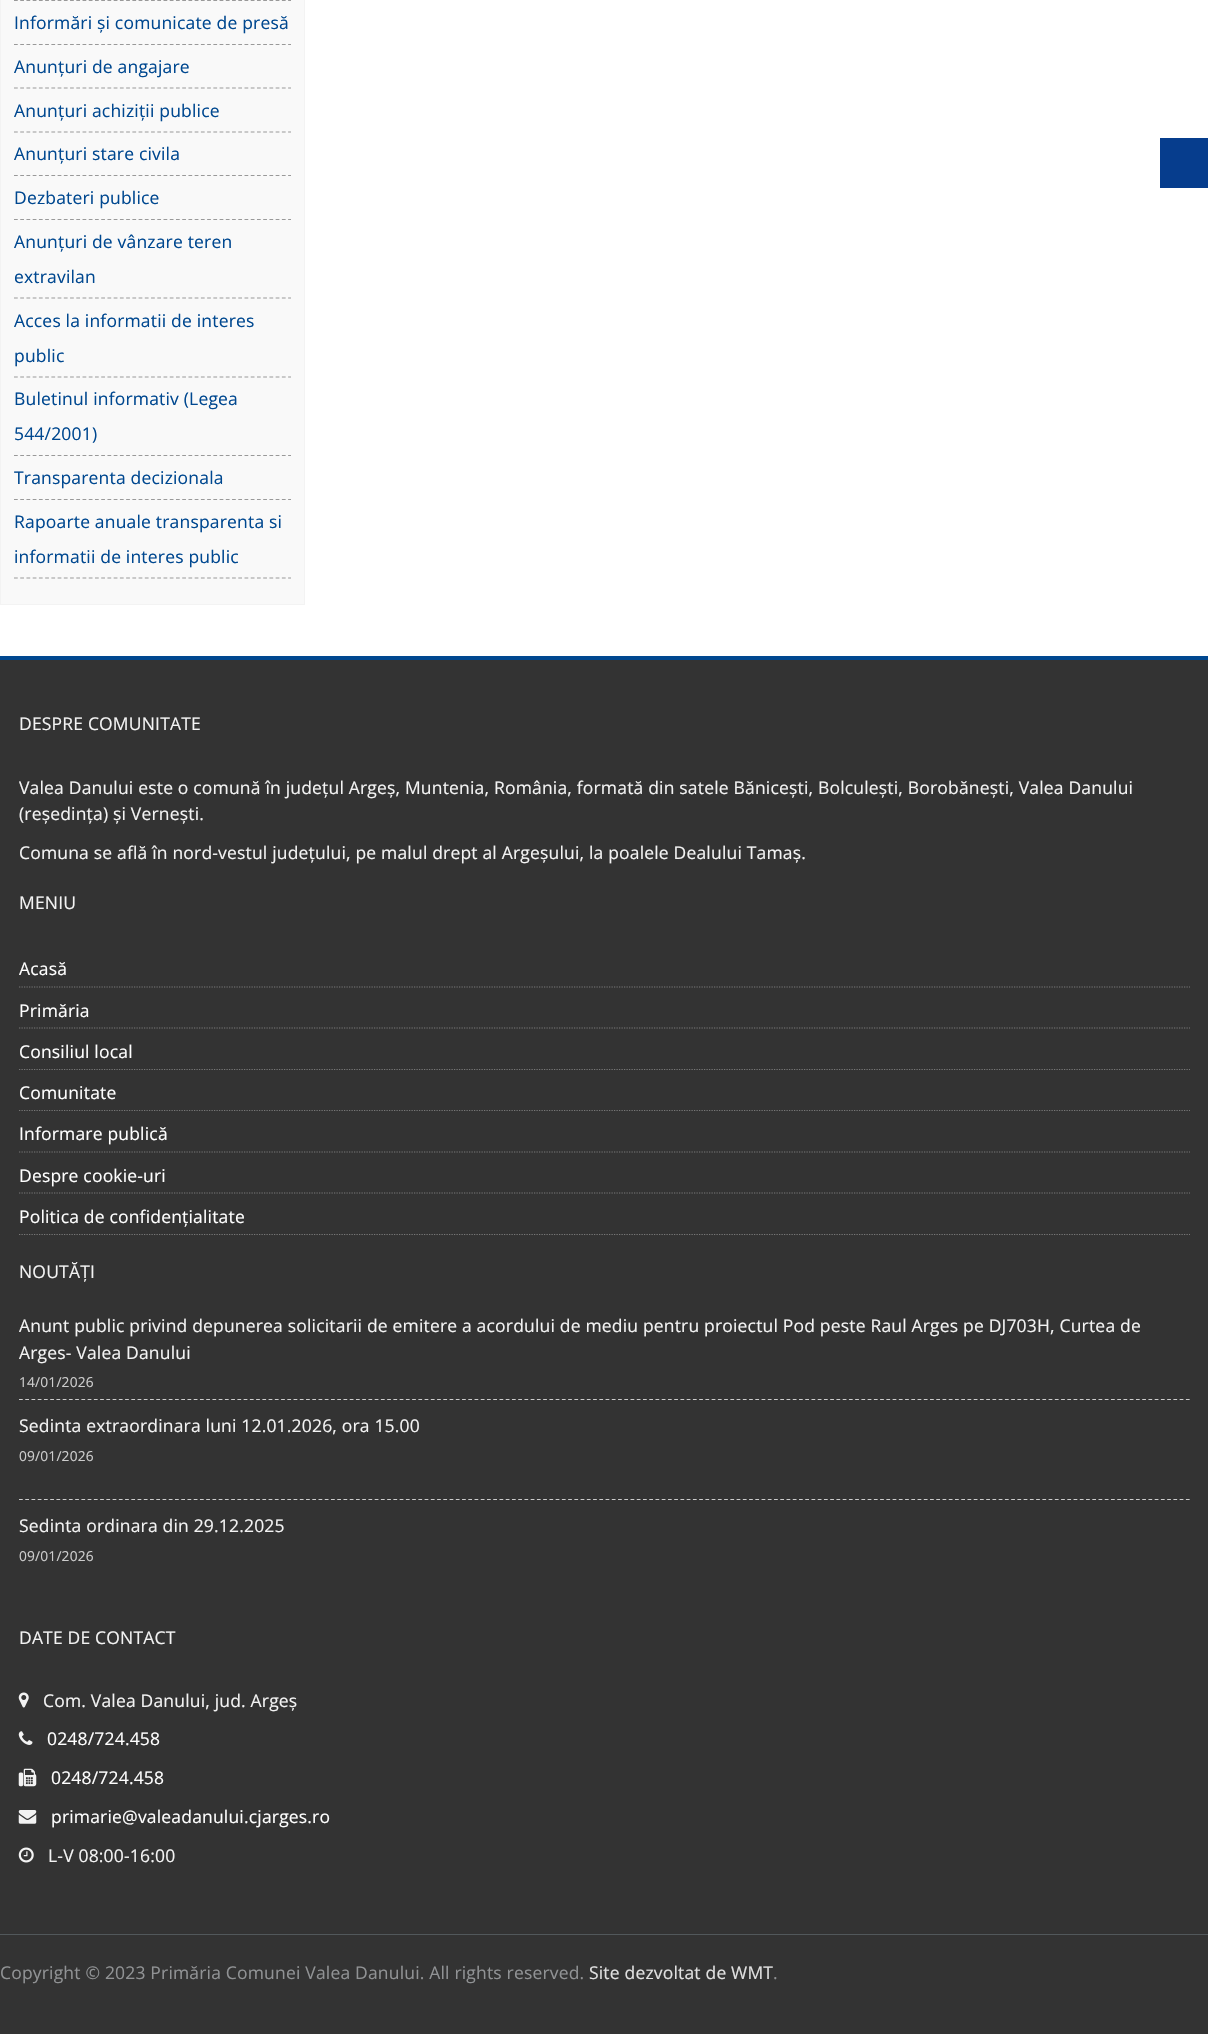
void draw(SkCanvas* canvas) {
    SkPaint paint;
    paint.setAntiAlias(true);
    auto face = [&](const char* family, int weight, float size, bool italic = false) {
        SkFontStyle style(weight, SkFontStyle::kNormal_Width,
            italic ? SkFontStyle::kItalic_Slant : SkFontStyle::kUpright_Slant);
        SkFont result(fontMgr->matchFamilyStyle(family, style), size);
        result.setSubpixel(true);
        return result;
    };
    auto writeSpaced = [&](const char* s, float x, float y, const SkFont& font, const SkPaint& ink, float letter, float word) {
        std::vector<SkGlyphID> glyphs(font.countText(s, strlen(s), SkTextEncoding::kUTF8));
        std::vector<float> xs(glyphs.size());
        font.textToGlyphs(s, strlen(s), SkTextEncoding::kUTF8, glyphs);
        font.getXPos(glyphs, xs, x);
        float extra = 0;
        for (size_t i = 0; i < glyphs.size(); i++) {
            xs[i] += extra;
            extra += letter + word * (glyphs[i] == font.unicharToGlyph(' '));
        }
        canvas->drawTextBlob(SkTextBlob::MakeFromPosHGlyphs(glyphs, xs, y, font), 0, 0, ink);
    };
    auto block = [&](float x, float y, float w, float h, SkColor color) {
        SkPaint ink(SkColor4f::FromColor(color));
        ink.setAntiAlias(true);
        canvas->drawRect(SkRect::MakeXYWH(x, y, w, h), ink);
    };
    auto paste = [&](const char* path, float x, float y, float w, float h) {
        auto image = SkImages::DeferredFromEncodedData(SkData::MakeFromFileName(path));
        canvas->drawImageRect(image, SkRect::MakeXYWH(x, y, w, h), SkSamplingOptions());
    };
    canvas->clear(SK_ColorWHITE);
    paint.setColor(SkColorSetRGB(249, 249, 249));
    canvas->drawRect(SkRect::MakeXYWH(0.5f, -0.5f, 304, 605), paint);
    paint.setStyle(SkPaint::kStroke_Style);
    paint.setStrokeWidth(1);
    paint.setColor(SkColorSetRGB(243, 243, 243));
    canvas->drawRect(SkRect::MakeXYWH(0.5f, -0.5f, 304, 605), paint);
    paint.setStrokeWidth(1.2f);
    paint.setColor(SkColorSetRGB(153, 153, 153));
    paint.setPathEffect(SkDashPathEffect::Make({{3.75f, 2.48f}}, 0));
    canvas->drawPath(SkPathBuilder().moveTo(14, 0.5f).lineTo(291, 0.5f).detach(), paint);
    paint.setPathEffect(nullptr);
    paint.setPathEffect(SkDashPathEffect::Make({{3.75f, 2.48f}}, 0));
    canvas->drawPath(SkPathBuilder().moveTo(14, 44.5f).lineTo(291, 44.5f).detach(), paint);
    paint.setPathEffect(nullptr);
    auto kFont1 = face("Open Sans", 400, 17.5f);
    paint.setStyle(SkPaint::kFill_Style);
    paint.setColor(SkColorSetRGB(0, 72, 144));
    writeSpaced("Informări și comunicate de presă", 14, 29, kFont1, paint, 0.18f, 0);
    paint.setStyle(SkPaint::kStroke_Style);
    paint.setColor(SkColorSetRGB(153, 153, 153));
    paint.setPathEffect(SkDashPathEffect::Make({{3.75f, 2.48f}}, 0));
    canvas->drawPath(SkPathBuilder().moveTo(14, 88).lineTo(291, 88).detach(), paint);
    paint.setPathEffect(nullptr);
    paint.setStyle(SkPaint::kFill_Style);
    paint.setColor(SkColorSetRGB(0, 72, 144));
    writeSpaced("Anunțuri de angajare", 14, 73, kFont1, paint, 0.18f, 0);
    paint.setStyle(SkPaint::kStroke_Style);
    paint.setColor(SkColorSetRGB(153, 153, 153));
    paint.setPathEffect(SkDashPathEffect::Make({{3.75f, 2.48f}}, 0));
    canvas->drawPath(SkPathBuilder().moveTo(14, 132).lineTo(291, 132).detach(), paint);
    paint.setPathEffect(nullptr);
    paint.setStyle(SkPaint::kFill_Style);
    paint.setColor(SkColorSetRGB(0, 72, 144));
    writeSpaced("Anunțuri achiziții publice", 14, 117, kFont1, paint, 0.18f, 0);
    paint.setStyle(SkPaint::kStroke_Style);
    paint.setColor(SkColorSetRGB(153, 153, 153));
    paint.setPathEffect(SkDashPathEffect::Make({{3.75f, 2.48f}}, 0));
    canvas->drawPath(SkPathBuilder().moveTo(14, 175.5f).lineTo(291, 175.5f).detach(), paint);
    paint.setPathEffect(nullptr);
    paint.setStyle(SkPaint::kFill_Style);
    paint.setColor(SkColorSetRGB(0, 72, 144));
    writeSpaced("Anunțuri stare civila", 14, 160, kFont1, paint, 0.18f, 0);
    paint.setStyle(SkPaint::kStroke_Style);
    paint.setColor(SkColorSetRGB(153, 153, 153));
    paint.setPathEffect(SkDashPathEffect::Make({{3.75f, 2.48f}}, 0));
    canvas->drawPath(SkPathBuilder().moveTo(14, 219.5f).lineTo(291, 219.5f).detach(), paint);
    paint.setPathEffect(nullptr);
    paint.setStyle(SkPaint::kFill_Style);
    paint.setColor(SkColorSetRGB(0, 72, 144));
    writeSpaced("Dezbateri publice", 14, 204, kFont1, paint, 0.18f, 0);
    paint.setStyle(SkPaint::kStroke_Style);
    paint.setColor(SkColorSetRGB(153, 153, 153));
    paint.setPathEffect(SkDashPathEffect::Make({{3.75f, 2.48f}}, 0));
    canvas->drawPath(SkPathBuilder().moveTo(14, 298).lineTo(291, 298).detach(), paint);
    paint.setPathEffect(nullptr);
    paint.setStyle(SkPaint::kFill_Style);
    paint.setColor(SkColorSetRGB(0, 72, 144));
    writeSpaced("Anunțuri de vânzare teren", 14, 248, kFont1, paint, 0.18f, 0);
    writeSpaced("extravilan", 14, 283, kFont1, paint, 0.18f, 0);
    paint.setStyle(SkPaint::kStroke_Style);
    paint.setColor(SkColorSetRGB(153, 153, 153));
    paint.setPathEffect(SkDashPathEffect::Make({{3.75f, 2.48f}}, 0));
    canvas->drawPath(SkPathBuilder().moveTo(14, 377).lineTo(291, 377).detach(), paint);
    paint.setPathEffect(nullptr);
    paint.setStyle(SkPaint::kFill_Style);
    paint.setColor(SkColorSetRGB(0, 72, 144));
    writeSpaced("Acces la informatii de interes", 14, 327, kFont1, paint, 0.18f, 0);
    writeSpaced("public", 14, 362, kFont1, paint, 0.18f, 0);
    paint.setStyle(SkPaint::kStroke_Style);
    paint.setColor(SkColorSetRGB(153, 153, 153));
    paint.setPathEffect(SkDashPathEffect::Make({{3.75f, 2.48f}}, 0));
    canvas->drawPath(SkPathBuilder().moveTo(14, 455.5f).lineTo(291, 455.5f).detach(), paint);
    paint.setPathEffect(nullptr);
    paint.setStyle(SkPaint::kFill_Style);
    paint.setColor(SkColorSetRGB(0, 72, 144));
    writeSpaced("Buletinul informativ (Legea", 14, 405, kFont1, paint, 0.18f, 0);
    writeSpaced("544/2001)", 14, 440, kFont1, paint, 0.18f, 0);
    paint.setStyle(SkPaint::kStroke_Style);
    paint.setColor(SkColorSetRGB(153, 153, 153));
    paint.setPathEffect(SkDashPathEffect::Make({{3.75f, 2.48f}}, 0));
    canvas->drawPath(SkPathBuilder().moveTo(14, 499.5f).lineTo(291, 499.5f).detach(), paint);
    paint.setPathEffect(nullptr);
    paint.setStyle(SkPaint::kFill_Style);
    paint.setColor(SkColorSetRGB(0, 72, 144));
    writeSpaced("Transparenta decizionala", 14, 484, kFont1, paint, 0.18f, 0);
    paint.setStyle(SkPaint::kStroke_Style);
    paint.setColor(SkColorSetRGB(153, 153, 153));
    paint.setPathEffect(SkDashPathEffect::Make({{3.75f, 2.48f}}, 0));
    canvas->drawPath(SkPathBuilder().moveTo(14, 578).lineTo(291, 578).detach(), paint);
    paint.setPathEffect(nullptr);
    paint.setStyle(SkPaint::kFill_Style);
    paint.setColor(SkColorSetRGB(0, 72, 144));
    writeSpaced("Rapoarte anuale transparenta si", 14, 528, kFont1, paint, 0.18f, 0);
    writeSpaced("informatii de interes public", 14, 563, kFont1, paint, 0.18f, 0);
    block(1160, 138, 48, 50, SkColorSetRGB(6, 61, 141));
    block(0, 660, 1208, 1374, SkColorSetRGB(51, 51, 51));
    block(0, 656, 1208, 4, SkColorSetRGB(0, 72, 144));
    paint.setColor(SkColorSetRGB(243, 243, 243));
    writeSpaced("DESPRE COMUNITATE", 19, 730, kFont1, paint, 0.18f, 0);
    writeSpaced("Valea Danului este o comună în județul Argeș, Muntenia, România, formată din satele Bănicești, Bolculești, Borobănești, Valea Danului", 19, 794, kFont1, paint, 0.18f, 0);
    writeSpaced("(reședința) și Vernești.", 19, 820, kFont1, paint, 0.18f, 0);
    writeSpaced("Comuna se află în nord-vestul județului, pe malul drept al Argeșului, la poalele Dealului Tamaș.", 19, 859, kFont1, paint, 0.18f, 0);
    writeSpaced("MENIU", 19, 909, kFont1, paint, 0.18f, 0);
    paint.setStyle(SkPaint::kStroke_Style);
    paint.setColor(SkColorSetRGB(119, 119, 119));
    paint.setPathEffect(SkDashPathEffect::Make({{1.25f, 1.25f}}, 0));
    canvas->drawPath(SkPathBuilder().moveTo(19, 987).lineTo(1190, 987).detach(), paint);
    paint.setPathEffect(nullptr);
    paint.setStyle(SkPaint::kFill_Style);
    paint.setColor(SK_ColorWHITE);
    writeSpaced("Acasă", 19, 975, kFont1, paint, 0.18f, 0);
    paint.setStyle(SkPaint::kStroke_Style);
    paint.setColor(SkColorSetRGB(119, 119, 119));
    paint.setPathEffect(SkDashPathEffect::Make({{1.25f, 1.25f}}, 0));
    canvas->drawPath(SkPathBuilder().moveTo(19, 1028).lineTo(1190, 1028).detach(), paint);
    paint.setPathEffect(nullptr);
    paint.setStyle(SkPaint::kFill_Style);
    paint.setColor(SK_ColorWHITE);
    writeSpaced("Primăria", 19, 1017, kFont1, paint, 0.18f, 0);
    paint.setStyle(SkPaint::kStroke_Style);
    paint.setColor(SkColorSetRGB(119, 119, 119));
    paint.setPathEffect(SkDashPathEffect::Make({{1.25f, 1.25f}}, 0));
    canvas->drawPath(SkPathBuilder().moveTo(19, 1069.5f).lineTo(1190, 1069.5f).detach(), paint);
    paint.setPathEffect(nullptr);
    paint.setStyle(SkPaint::kFill_Style);
    paint.setColor(SK_ColorWHITE);
    writeSpaced("Consiliul local", 19, 1058, kFont1, paint, 0.18f, 0);
    paint.setStyle(SkPaint::kStroke_Style);
    paint.setColor(SkColorSetRGB(119, 119, 119));
    paint.setPathEffect(SkDashPathEffect::Make({{1.25f, 1.25f}}, 0));
    canvas->drawPath(SkPathBuilder().moveTo(19, 1110.5f).lineTo(1190, 1110.5f).detach(), paint);
    paint.setPathEffect(nullptr);
    paint.setStyle(SkPaint::kFill_Style);
    paint.setColor(SK_ColorWHITE);
    writeSpaced("Comunitate", 19, 1099, kFont1, paint, 0.18f, 0);
    paint.setStyle(SkPaint::kStroke_Style);
    paint.setColor(SkColorSetRGB(119, 119, 119));
    paint.setPathEffect(SkDashPathEffect::Make({{1.25f, 1.25f}}, 0));
    canvas->drawPath(SkPathBuilder().moveTo(19, 1152).lineTo(1190, 1152).detach(), paint);
    paint.setPathEffect(nullptr);
    paint.setStyle(SkPaint::kFill_Style);
    paint.setColor(SK_ColorWHITE);
    writeSpaced("Informare publică", 19, 1140, kFont1, paint, 0.18f, 0);
    paint.setStyle(SkPaint::kStroke_Style);
    paint.setColor(SkColorSetRGB(119, 119, 119));
    paint.setPathEffect(SkDashPathEffect::Make({{1.25f, 1.25f}}, 0));
    canvas->drawPath(SkPathBuilder().moveTo(19, 1193).lineTo(1190, 1193).detach(), paint);
    paint.setPathEffect(nullptr);
    paint.setStyle(SkPaint::kFill_Style);
    paint.setColor(SK_ColorWHITE);
    writeSpaced("Despre cookie-uri", 19, 1182, kFont1, paint, 0.18f, 0);
    paint.setStyle(SkPaint::kStroke_Style);
    paint.setColor(SkColorSetRGB(119, 119, 119));
    paint.setPathEffect(SkDashPathEffect::Make({{1.25f, 1.25f}}, 0));
    canvas->drawPath(SkPathBuilder().moveTo(19, 1234.5f).lineTo(1190, 1234.5f).detach(), paint);
    paint.setPathEffect(nullptr);
    paint.setStyle(SkPaint::kFill_Style);
    paint.setColor(SK_ColorWHITE);
    writeSpaced("Politica de confidențialitate", 19, 1223, kFont1, paint, 0.18f, 0);
    paint.setColor(SkColorSetRGB(243, 243, 243));
    writeSpaced("NOUTĂȚI", 19, 1278, kFont1, paint, 0.18f, 0);
    paint.setStyle(SkPaint::kStroke_Style);
    paint.setColor(SkColorSetRGB(204, 204, 204));
    paint.setPathEffect(SkDashPathEffect::Make({{3.75f, 2.49f}}, 0));
    canvas->drawPath(SkPathBuilder().moveTo(19, 1399.5f).lineTo(1190, 1399.5f).detach(), paint);
    paint.setPathEffect(nullptr);
    paint.setStyle(SkPaint::kFill_Style);
    paint.setColor(SkColorSetRGB(243, 243, 243));
    writeSpaced("Anunt public privind depunerea solicitarii de emitere a acordului de mediu pentru proiectul Pod peste Raul Arges pe DJ703H, Curtea de", 19, 1332, kFont1, paint, 0.18f, 0);
    writeSpaced("Arges- Valea Danului", 19, 1359, kFont1, paint, 0.18f, 0);
    auto kFont2 = face("Open Sans", 400, 13.75f);
    paint.setColor(SkColorSetRGB(204, 204, 204));
    writeSpaced("14/01/2026", 19, 1387, kFont2, paint, 0.18f, 0);
    paint.setStyle(SkPaint::kStroke_Style);
    paint.setPathEffect(SkDashPathEffect::Make({{3.75f, 2.49f}}, 0));
    canvas->drawPath(SkPathBuilder().moveTo(19, 1499.5f).lineTo(1190, 1499.5f).detach(), paint);
    paint.setPathEffect(nullptr);
    paint.setStyle(SkPaint::kFill_Style);
    paint.setColor(SkColorSetRGB(243, 243, 243));
    writeSpaced("Sedinta extraordinara luni 12.01.2026, ora 15.00", 19, 1432, kFont1, paint, 0.18f, 0);
    paint.setColor(SkColorSetRGB(204, 204, 204));
    writeSpaced("09/01/2026", 19, 1461, kFont2, paint, 0.18f, 0);
    paint.setColor(SkColorSetRGB(243, 243, 243));
    writeSpaced("Sedinta ordinara din 29.12.2025", 19, 1532, kFont1, paint, 0.18f, 0);
    paint.setColor(SkColorSetRGB(204, 204, 204));
    writeSpaced("09/01/2026", 19, 1561, kFont2, paint, 0.18f, 0);
    paint.setColor(SkColorSetRGB(243, 243, 243));
    writeSpaced("DATE DE CONTACT", 19, 1644, kFont1, paint, 0.18f, 0);
    paste("pic1.png", 18, 1692, 11, 16);
    writeSpaced("Com. Valea Danului, jud. Argeș", 43, 1707, kFont1, paint, 0.18f, 0);
    paste("pic2.png", 18, 1731, 15, 14);
    paint.setColor(SK_ColorWHITE);
    writeSpaced("0248/724.458", 47, 1745, kFont1, paint, 0.18f, 0);
    paste("pic3.png", 18, 1768, 19, 19);
    writeSpaced("0248/724.458", 51, 1784, kFont1, paint, 0.18f, 0);
    paste("pic4.png", 18, 1810, 19, 14);
    writeSpaced("primarie@valeadanului.cjarges.ro", 51, 1823, kFont1, paint, 0.18f, 0);
    paste("pic5.png", 18, 1847, 16, 16);
    paint.setColor(SkColorSetRGB(243, 243, 243));
    writeSpaced("L-V 08:00-16:00", 48, 1862, kFont1, paint, 0.18f, 0);
    block(0, 1934, 1208, 1, SkColorSetRGB(82, 88, 91));
    paint.setColor(SkColorSetRGB(144, 146, 148));
    writeSpaced("Copyright © 2023 Primăria Comunei Valea Danului. All rights reserved.", 0, 1979, kFont1, paint, 0.18f, 0);
    paint.setColor(SkColorSetRGB(224, 224, 224));
    writeSpaced("Site dezvoltat de WMT", 589, 1979, kFont1, paint, 0.18f, 0);
    paint.setColor(SkColorSetRGB(144, 146, 148));
    writeSpaced(".", 773, 1979, kFont1, paint, 0.18f, 0);
}
